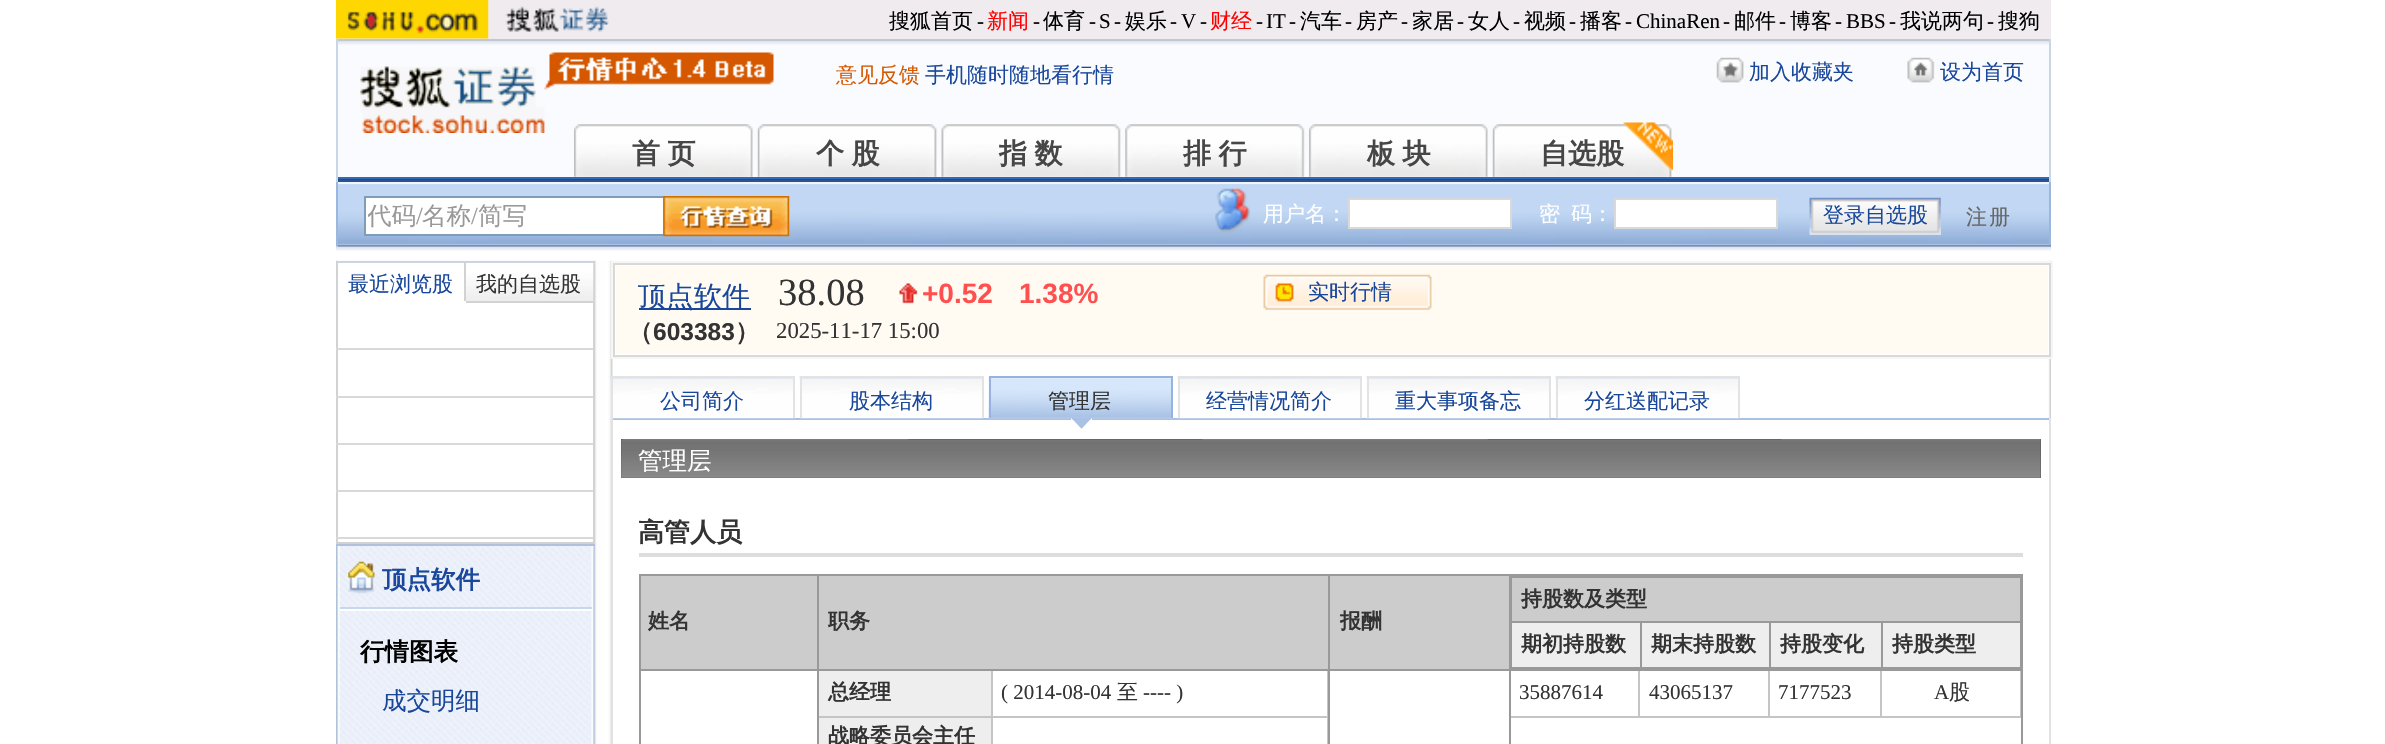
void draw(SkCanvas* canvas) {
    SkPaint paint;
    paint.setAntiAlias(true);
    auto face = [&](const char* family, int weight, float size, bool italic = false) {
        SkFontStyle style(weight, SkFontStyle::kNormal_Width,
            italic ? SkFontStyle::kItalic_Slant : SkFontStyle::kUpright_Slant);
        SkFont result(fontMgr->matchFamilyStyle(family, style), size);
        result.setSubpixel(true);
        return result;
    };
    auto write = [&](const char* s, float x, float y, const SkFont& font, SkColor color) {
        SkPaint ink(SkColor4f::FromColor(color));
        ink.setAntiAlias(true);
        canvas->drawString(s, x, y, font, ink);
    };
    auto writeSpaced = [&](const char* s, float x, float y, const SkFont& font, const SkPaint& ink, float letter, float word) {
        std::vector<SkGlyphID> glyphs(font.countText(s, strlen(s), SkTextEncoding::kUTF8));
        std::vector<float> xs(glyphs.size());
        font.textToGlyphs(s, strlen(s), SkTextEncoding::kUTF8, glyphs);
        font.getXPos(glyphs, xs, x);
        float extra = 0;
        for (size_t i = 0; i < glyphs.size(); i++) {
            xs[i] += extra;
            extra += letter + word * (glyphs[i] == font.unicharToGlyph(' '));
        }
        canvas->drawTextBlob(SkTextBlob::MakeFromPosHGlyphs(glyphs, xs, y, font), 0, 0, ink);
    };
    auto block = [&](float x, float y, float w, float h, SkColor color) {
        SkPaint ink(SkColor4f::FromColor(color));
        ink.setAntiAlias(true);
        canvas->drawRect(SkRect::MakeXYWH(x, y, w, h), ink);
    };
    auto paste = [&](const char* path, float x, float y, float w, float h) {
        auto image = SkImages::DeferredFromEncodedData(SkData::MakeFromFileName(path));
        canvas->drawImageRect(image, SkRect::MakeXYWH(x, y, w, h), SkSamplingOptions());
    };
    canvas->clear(SK_ColorWHITE);
    block(336, 0, 1715, 39, SkColorSetRGB(239, 235, 239));
    paste("pic1.png", 336, 0, 153, 39);
    paste("pic2.png", 505, 6, 104, 26);
    auto kFont1 = face("WenQuanYi Zen Hei", 500, 21);
    write("搜狐首页", 889, 28, kFont1, SK_ColorBLACK);
    auto kFont2 = face("Liberation Serif", 400, 21);
    write("-", 977, 28, kFont2, SK_ColorBLACK);
    write("新闻", 987, 28, kFont1, SkColorSetRGB(255, 0, 0));
    write("-", 1033, 28, kFont2, SK_ColorBLACK);
    write("体育", 1043, 28, kFont1, SK_ColorBLACK);
    write("-", 1089, 28, kFont2, SK_ColorBLACK);
    write("S", 1099, 28, kFont2, SK_ColorBLACK);
    write("-", 1114, 28, kFont2, SK_ColorBLACK);
    write("娱乐", 1125, 28, kFont1, SK_ColorBLACK);
    write("-", 1170, 28, kFont2, SK_ColorBLACK);
    write("V", 1181, 28, kFont2, SK_ColorBLACK);
    write("-", 1200, 28, kFont2, SK_ColorBLACK);
    write("财经", 1210, 28, kFont1, SkColorSetRGB(255, 0, 0));
    write("-", 1256, 28, kFont2, SK_ColorBLACK);
    write("IT", 1266, 28, kFont2, SK_ColorBLACK);
    write("-", 1289, 28, kFont2, SK_ColorBLACK);
    write("汽车", 1300, 28, kFont1, SK_ColorBLACK);
    write("-", 1345, 28, kFont2, SK_ColorBLACK);
    write("房产", 1356, 28, kFont1, SK_ColorBLACK);
    write("-", 1401, 28, kFont2, SK_ColorBLACK);
    write("家居", 1412, 28, kFont1, SK_ColorBLACK);
    write("-", 1457, 28, kFont2, SK_ColorBLACK);
    write("女人", 1468, 28, kFont1, SK_ColorBLACK);
    write("-", 1513, 28, kFont2, SK_ColorBLACK);
    write("视频", 1524, 28, kFont1, SK_ColorBLACK);
    write("-", 1569, 28, kFont2, SK_ColorBLACK);
    write("播客", 1580, 28, kFont1, SK_ColorBLACK);
    write("-", 1625, 28, kFont2, SK_ColorBLACK);
    write("ChinaRen", 1636, 28, kFont2, SK_ColorBLACK);
    write("-", 1723, 28, kFont2, SK_ColorBLACK);
    write("邮件", 1734, 28, kFont1, SK_ColorBLACK);
    write("-", 1779, 28, kFont2, SK_ColorBLACK);
    write("博客", 1790, 28, kFont1, SK_ColorBLACK);
    write("-", 1835, 28, kFont2, SK_ColorBLACK);
    write("BBS", 1846, 28, kFont2, SK_ColorBLACK);
    write("-", 1889, 28, kFont2, SK_ColorBLACK);
    write("我说两句", 1900, 28, kFont1, SK_ColorBLACK);
    write("-", 1987, 28, kFont2, SK_ColorBLACK);
    write("搜狗", 1998, 28, kFont1, SK_ColorBLACK);
    block(338, 45, 1711, 132, SkColorSetRGB(250, 251, 254));
    paste("pic3.png", 338, 41, 1711, 4);
    block(336, 39, 1715, 2, SkColorSetRGB(194, 199, 212));
    block(2049, 39, 2, 143, SkColorSetRGB(200, 214, 229));
    block(336, 39, 2, 143, SkColorSetRGB(200, 214, 229));
    paste("pic4.png", 360, 52, 414, 81);
    write("意见反馈", 836, 82, kFont1, SkColorSetRGB(213, 88, 0));
    write("手机随时随地看行情", 925, 82, kFont1, SkColorSetRGB(24, 71, 155));
    paste("pic5.png", 1716, 57, 28, 26);
    write("加入收藏夹", 1749, 79, kFont1, SkColorSetRGB(24, 71, 155));
    paste("pic6.png", 1907, 57, 28, 26);
    write("设为首页", 1940, 79, kFont1, SkColorSetRGB(24, 71, 155));
    paste("pic7.png", 574, 124, 179, 53);
    auto kFont3 = face("WenQuanYi Zen Hei", 700, 28);
    paint.setColor(SkColorSetRGB(70, 70, 70));
    writeSpaced("首 页", 632, 163, kFont3, paint, 0, -1);
    paste("pic8.png", 757, 124, 180, 53);
    writeSpaced("个 股", 816, 163, kFont3, paint, 0, -1);
    paste("pic9.png", 941, 124, 180, 53);
    writeSpaced("指 数", 999, 163, kFont3, paint, 0, -1);
    paste("pic10.png", 1125, 124, 180, 53);
    writeSpaced("排 行", 1183, 163, kFont3, paint, 0, -1);
    paste("pic11.png", 1309, 124, 179, 53);
    writeSpaced("板 块", 1367, 163, kFont3, paint, 0, -1);
    paste("pic8.png", 1492, 124, 180, 53);
    paste("pic12.png", 1623, 122, 50, 49);
    write("自选股", 1540, 163, kFont3, SkColorSetRGB(70, 70, 70));
    block(338, 179, 1711, 1, SkColorSetRGB(32, 72, 140));
    block(338, 177, 1711, 2, SkColorSetRGB(50, 106, 184));
    block(338, 180, 1711, 2, SkColorSetRGB(44, 82, 146));
    paste("pic13.png", 338, 184, 1711, 61);
    block(336, 182, 1715, 2, SkColorSetRGB(238, 247, 255));
    block(2049, 182, 2, 65, SkColorSetRGB(155, 183, 222));
    block(336, 245, 1715, 2, SkColorSetRGB(117, 143, 185));
    block(336, 182, 2, 65, SkColorSetRGB(155, 183, 222));
    paint.setColor(SK_ColorWHITE);
    canvas->drawRect(SkRect::MakeXYWH(365, 197, 299, 38), paint);
    paint.setStyle(SkPaint::kStroke_Style);
    paint.setStrokeWidth(2);
    paint.setColor(SkColorSetRGB(127, 157, 185));
    canvas->drawRect(SkRect::MakeXYWH(365, 197, 299, 38), paint);
    canvas->save();
    canvas->clipRect(SkRect::MakeXYWH(368, 200, 294, 33));
    auto kFont4 = face("WenQuanYi Zen Hei", 500, 24.5f);
    write("代码", 367, 224, kFont4, SkColorSetRGB(153, 153, 153));
    canvas->restore();
    auto kFont5 = face("Liberation Serif", 400, 24.5f);
    write("/", 416, 224, kFont5, SkColorSetRGB(153, 153, 153));
    write("名称", 422, 224, kFont4, SkColorSetRGB(153, 153, 153));
    write("/", 471, 224, kFont5, SkColorSetRGB(153, 153, 153));
    write("简写", 478, 224, kFont4, SkColorSetRGB(153, 153, 153));
    paste("pic14.png", 663, 196, 127, 41);
    paste("pic15.png", 1215, 188, 35, 45);
    write("用户名：", 1263, 221, kFont1, SK_ColorWHITE);
    paint.setStyle(SkPaint::kFill_Style);
    paint.setColor(SK_ColorWHITE);
    canvas->drawRect(SkRect::MakeXYWH(1349, 199, 162, 29), paint);
    paint.setStyle(SkPaint::kStroke_Style);
    paint.setColor(SkColorSetRGB(217, 217, 217));
    canvas->drawRect(SkRect::MakeXYWH(1349, 199, 162, 29), paint);
    write("密", 1539, 221, kFont1, SK_ColorWHITE);
    write("码：", 1571, 221, kFont1, SK_ColorWHITE);
    paint.setStyle(SkPaint::kFill_Style);
    paint.setColor(SK_ColorWHITE);
    canvas->drawRect(SkRect::MakeXYWH(1615, 199, 162, 29), paint);
    paint.setStyle(SkPaint::kStroke_Style);
    paint.setColor(SkColorSetRGB(217, 217, 217));
    canvas->drawRect(SkRect::MakeXYWH(1615, 199, 162, 29), paint);
    block(1810, 198, 131, 37, SkColorSetRGB(218, 218, 218));
    paste("pic16.png", 1809, 197, 132, 38);
    write("登录自选股", 1823, 222, kFont1, SkColorSetRGB(24, 71, 155));
    paint.setStyle(SkPaint::kFill_Style);
    paint.setColor(SkColorSetRGB(102, 102, 102));
    writeSpaced("注册", 1966, 224, kFont1, paint, 2, 0);
    paste("pic17.png", 336, 246, 1715, 5);
    paste("pic18.png", 336, 260, 1715, 484);
    block(338, 303, 255, 239, SK_ColorWHITE);
    paint.setStyle(SkPaint::kStroke_Style);
    paint.setColor(SkColorSetRGB(210, 210, 210));
    canvas->drawRect(SkRect::MakeXYWH(337, 262, 257, 281), paint);
    paste("pic19.png", 337, 262, 257, 41);
    block(466, 301, 127, 2, SkColorSetRGB(210, 210, 210));
    block(337, 263, 1, 38, SkColorSetRGB(210, 210, 210));
    block(338, 274, 128, 29, SK_ColorWHITE);
    write("最近浏览股", 348, 291, kFont1, SkColorSetRGB(24, 71, 155));
    block(464, 263, 2, 38, SkColorSetRGB(210, 210, 210));
    write("我的自选股", 476, 291, kFont1, SkColorSetRGB(51, 51, 51));
    block(336, 348, 257, 2, SkColorSetRGB(217, 217, 217));
    block(336, 396, 257, 2, SkColorSetRGB(217, 217, 217));
    block(336, 443, 257, 2, SkColorSetRGB(217, 217, 217));
    block(336, 490, 257, 2, SkColorSetRGB(217, 217, 217));
    block(336, 537, 257, 2, SkColorSetRGB(217, 217, 217));
    block(336, 544, 259, 2, SkColorSetRGB(177, 193, 220));
    block(340, 607, 252, 2, SkColorSetRGB(200, 215, 240));
    paste("pic20.png", 348, 561, 27, 33);
    auto kFont6 = face("WenQuanYi Zen Hei", 700, 24.5f);
    write("顶点软件", 382, 588, kFont6, SkColorSetRGB(24, 71, 155));
    block(340, 609, 252, 2, SkColorSetRGB(254, 254, 254));
    write("行情图表", 360, 660, kFont6, SK_ColorBLACK);
    write("成交明细", 382, 709, kFont4, SkColorSetRGB(24, 71, 155));
    block(2048, 265, 1, 90, SK_ColorWHITE);
    paint.setColor(SkColorSetRGB(246, 246, 246));
    canvas->drawRect(SkRect::MakeXYWH(612, 262, 1440, 96), paint);
    paint.setColor(SkColorSetRGB(217, 217, 217));
    canvas->drawRect(SkRect::MakeXYWH(614, 264, 1436, 92), paint);
    block(616, 266, 1432, 88, SkColorSetRGB(255, 251, 242));
    block(639, 308, 112, 2, SkColorSetRGB(24, 71, 155));
    auto kFont7 = face("WenQuanYi Zen Hei", 500, 28);
    write("顶点软件", 638, 306, kFont7, SkColorSetRGB(24, 71, 155));
    write("（", 628, 340, kFont6, SkColorSetRGB(51, 51, 51));
    auto kFont8 = face("Liberation Sans", 700, 24.5f);
    write("603383", 653, 340, kFont8, SkColorSetRGB(51, 51, 51));
    write("）", 735, 340, kFont6, SkColorSetRGB(51, 51, 51));
    auto kFont9 = face("Liberation Serif", 400, 38.5f);
    write("38.08", 778, 305, kFont9, SkColorSetRGB(51, 51, 51));
    paste("pic21.png", 899, 283, 19, 21);
    auto kFont10 = face("Liberation Sans", 700, 28);
    write("+0.52", 922, 303, kFont10, SkColorSetRGB(255, 80, 80));
    write("1.38%", 1019, 303, kFont10, SkColorSetRGB(255, 80, 80));
    paste("pic22.png", 1263, 274, 169, 36);
    write("实时行情", 1308, 299, kFont1, SkColorSetRGB(24, 71, 155));
    auto kFont11 = face("Liberation Serif", 400, 22.75f);
    write("2025-11-17 15:00", 776, 338, kFont11, SkColorSetRGB(51, 51, 51));
    block(611, 418, 1440, 2, SkColorSetRGB(168, 193, 229));
    block(611, 418, 2, 326, SkColorSetRGB(226, 226, 226));
    paste("pic23.png", 610, 376, 185, 43);
    block(611, 376, 184, 2, SkColorSetRGB(227, 227, 227));
    block(793, 376, 2, 42, SkColorSetRGB(227, 227, 227));
    block(611, 376, 2, 42, SkColorSetRGB(227, 227, 227));
    write("公司简介", 660, 408, kFont1, SkColorSetRGB(24, 71, 155));
    paste("pic24.png", 799, 376, 185, 43);
    block(800, 376, 184, 2, SkColorSetRGB(227, 227, 227));
    block(982, 376, 2, 42, SkColorSetRGB(227, 227, 227));
    block(800, 376, 2, 42, SkColorSetRGB(227, 227, 227));
    write("股本结构", 849, 408, kFont1, SkColorSetRGB(24, 71, 155));
    paste("pic25.png", 988, 377, 185, 42);
    block(989, 376, 184, 2, SkColorSetRGB(151, 177, 224));
    block(1171, 376, 2, 42, SkColorSetRGB(151, 177, 224));
    block(989, 376, 2, 42, SkColorSetRGB(151, 177, 224));
    write("管理层", 1048, 408, kFont1, SkColorSetRGB(51, 51, 51));
    paint.setStyle(SkPaint::kFill_Style);
    paint.setColor(SkColorSetRGB(168, 193, 229));
    canvas->drawPath(SkPathBuilder().moveTo(1071, 418).lineTo(1092, 418).lineTo(1081.5f, 429).close().detach(), paint);
    paint.setColor(SK_ColorWHITE);
    canvas->drawPath(SkPathBuilder().moveTo(1092, 418).lineTo(1092, 439).lineTo(1081.5f, 429).close().detach(), paint);
    canvas->drawPath(SkPathBuilder().moveTo(1071, 439).lineTo(1071, 418).lineTo(1081.5f, 429).close().detach(), paint);
    paste("pic24.png", 1177, 376, 185, 43);
    block(1178, 376, 184, 2, SkColorSetRGB(227, 227, 227));
    block(1360, 376, 2, 42, SkColorSetRGB(227, 227, 227));
    block(1178, 376, 2, 42, SkColorSetRGB(227, 227, 227));
    write("经营情况简介", 1206, 408, kFont1, SkColorSetRGB(24, 71, 155));
    paste("pic24.png", 1366, 376, 185, 43);
    block(1367, 376, 184, 2, SkColorSetRGB(227, 227, 227));
    block(1549, 376, 2, 42, SkColorSetRGB(227, 227, 227));
    block(1367, 376, 2, 42, SkColorSetRGB(227, 227, 227));
    write("重大事项备忘", 1395, 408, kFont1, SkColorSetRGB(24, 71, 155));
    paste("pic24.png", 1555, 376, 185, 43);
    block(1556, 376, 184, 2, SkColorSetRGB(227, 227, 227));
    block(1738, 376, 2, 42, SkColorSetRGB(227, 227, 227));
    block(1556, 376, 2, 42, SkColorSetRGB(227, 227, 227));
    write("分红送配记录", 1584, 408, kFont1, SkColorSetRGB(24, 71, 155));
    block(2048, 420, 1, 324, SK_ColorWHITE);
    block(2049, 418, 2, 326, SkColorSetRGB(226, 226, 226));
    block(621, 439, 1420, 39, SkColorSetRGB(85, 85, 85));
    paste("pic26.png", 621, 439, 1420, 39);
    write("管理层", 638, 469, kFont4, SK_ColorWHITE);
    block(639, 553, 1384, 4, SkColorSetRGB(221, 221, 221));
    auto kFont12 = face("WenQuanYi Zen Hei", 700, 26);
    write("高管人员", 638, 541, kFont12, SkColorSetRGB(51, 51, 51));
    block(641, 576, 176, 93, SkColorSetRGB(204, 204, 204));
    block(1509, 574, 514, 2, SkColorSetRGB(153, 153, 153));
    block(1510, 576, 511, 2, SkColorSetRGB(153, 153, 153));
    block(1881, 621, 140, 2, SkColorSetRGB(153, 153, 153));
    block(2020, 621, 1, 48, SkColorSetRGB(153, 153, 153));
    block(1881, 667, 140, 2, SkColorSetRGB(153, 153, 153));
    block(1881, 621, 2, 48, SkColorSetRGB(153, 153, 153));
    block(1769, 621, 114, 2, SkColorSetRGB(153, 153, 153));
    block(1769, 667, 114, 2, SkColorSetRGB(153, 153, 153));
    block(1769, 621, 2, 48, SkColorSetRGB(153, 153, 153));
    block(1640, 621, 131, 2, SkColorSetRGB(153, 153, 153));
    block(1640, 667, 131, 2, SkColorSetRGB(153, 153, 153));
    block(1640, 621, 2, 48, SkColorSetRGB(153, 153, 153));
    block(1510, 621, 132, 2, SkColorSetRGB(153, 153, 153));
    block(1510, 667, 132, 2, SkColorSetRGB(153, 153, 153));
    block(2020, 670, 1, 48, SkColorSetRGB(197, 197, 197));
    block(1880, 716, 141, 2, SkColorSetRGB(197, 197, 197));
    block(1880, 670, 2, 48, SkColorSetRGB(197, 197, 197));
    block(1768, 716, 113, 2, SkColorSetRGB(197, 197, 197));
    block(1768, 670, 2, 48, SkColorSetRGB(197, 197, 197));
    block(1638, 716, 131, 2, SkColorSetRGB(197, 197, 197));
    block(1638, 670, 2, 48, SkColorSetRGB(197, 197, 197));
    block(1509, 669, 514, 2, SkColorSetRGB(153, 153, 153));
    block(1510, 716, 130, 2, SkColorSetRGB(197, 197, 197));
    block(1509, 669, 2, 75, SkColorSetRGB(153, 153, 153));
    block(1328, 669, 182, 2, SkColorSetRGB(153, 153, 153));
    block(1509, 574, 2, 96, SkColorSetRGB(153, 153, 153));
    block(1328, 574, 182, 2, SkColorSetRGB(153, 153, 153));
    block(991, 716, 2, 28, SkColorSetRGB(197, 197, 197));
    block(1327, 670, 1, 74, SkColorSetRGB(197, 197, 197));
    block(991, 716, 337, 2, SkColorSetRGB(197, 197, 197));
    block(991, 670, 2, 48, SkColorSetRGB(197, 197, 197));
    block(1328, 669, 2, 75, SkColorSetRGB(153, 153, 153));
    block(817, 669, 513, 2, SkColorSetRGB(153, 153, 153));
    block(1328, 574, 2, 96, SkColorSetRGB(153, 153, 153));
    block(817, 574, 513, 2, SkColorSetRGB(153, 153, 153));
    block(817, 669, 2, 75, SkColorSetRGB(153, 153, 153));
    block(639, 669, 180, 2, SkColorSetRGB(153, 153, 153));
    block(817, 574, 2, 96, SkColorSetRGB(153, 153, 153));
    block(639, 574, 180, 2, SkColorSetRGB(153, 153, 153));
    block(639, 669, 2, 75, SkColorSetRGB(153, 153, 153));
    block(639, 574, 2, 96, SkColorSetRGB(153, 153, 153));
    auto kFont13 = face("WenQuanYi Zen Hei", 700, 21);
    write("姓名", 648, 628, kFont13, SkColorSetRGB(51, 51, 51));
    block(819, 576, 509, 93, SkColorSetRGB(204, 204, 204));
    write("职务", 828, 628, kFont13, SkColorSetRGB(51, 51, 51));
    block(1330, 576, 179, 93, SkColorSetRGB(204, 204, 204));
    write("报酬", 1340, 628, kFont13, SkColorSetRGB(51, 51, 51));
    block(1512, 578, 508, 43, SkColorSetRGB(204, 204, 204));
    block(2021, 669, 2, 75, SkColorSetRGB(153, 153, 153));
    block(2021, 574, 2, 96, SkColorSetRGB(153, 153, 153));
    block(2020, 576, 1, 47, SkColorSetRGB(153, 153, 153));
    block(1511, 621, 1, 48, SkColorSetRGB(153, 153, 153));
    block(1511, 576, 1, 47, SkColorSetRGB(153, 153, 153));
    write("持股数及类型", 1521, 606, kFont13, SkColorSetRGB(51, 51, 51));
    block(1512, 623, 128, 44, SkColorSetRGB(238, 238, 238));
    write("期初持股数", 1521, 651, kFont13, SkColorSetRGB(51, 51, 51));
    block(1642, 623, 127, 44, SkColorSetRGB(238, 238, 238));
    write("期末持股数", 1651, 651, kFont13, SkColorSetRGB(51, 51, 51));
    block(1771, 623, 110, 44, SkColorSetRGB(238, 238, 238));
    write("持股变化", 1780, 651, kFont13, SkColorSetRGB(51, 51, 51));
    block(1883, 623, 137, 44, SkColorSetRGB(238, 238, 238));
    write("持股类型", 1892, 651, kFont13, SkColorSetRGB(51, 51, 51));
    block(819, 671, 172, 45, SkColorSetRGB(238, 238, 238));
    block(819, 716, 173, 2, SkColorSetRGB(197, 197, 197));
    write("总经理", 828, 699, kFont13, SkColorSetRGB(51, 51, 51));
    write("( 2014-08-04", 1001, 699, kFont2, SkColorSetRGB(51, 51, 51));
    write("至", 1117, 699, kFont1, SkColorSetRGB(51, 51, 51));
    write("---- )", 1143, 699, kFont2, SkColorSetRGB(51, 51, 51));
    block(819, 718, 172, 26, SkColorSetRGB(238, 238, 238));
    write("战略委员会主任", 828, 743, kFont13, SkColorSetRGB(51, 51, 51));
    write("35887614", 1519, 699, kFont2, SkColorSetRGB(51, 51, 51));
    write("43065137", 1649, 699, kFont2, SkColorSetRGB(51, 51, 51));
    write("7177523", 1778, 699, kFont2, SkColorSetRGB(51, 51, 51));
    write("A", 1934, 699, kFont2, SkColorSetRGB(51, 51, 51));
    write("股", 1949, 699, kFont1, SkColorSetRGB(51, 51, 51));
}
